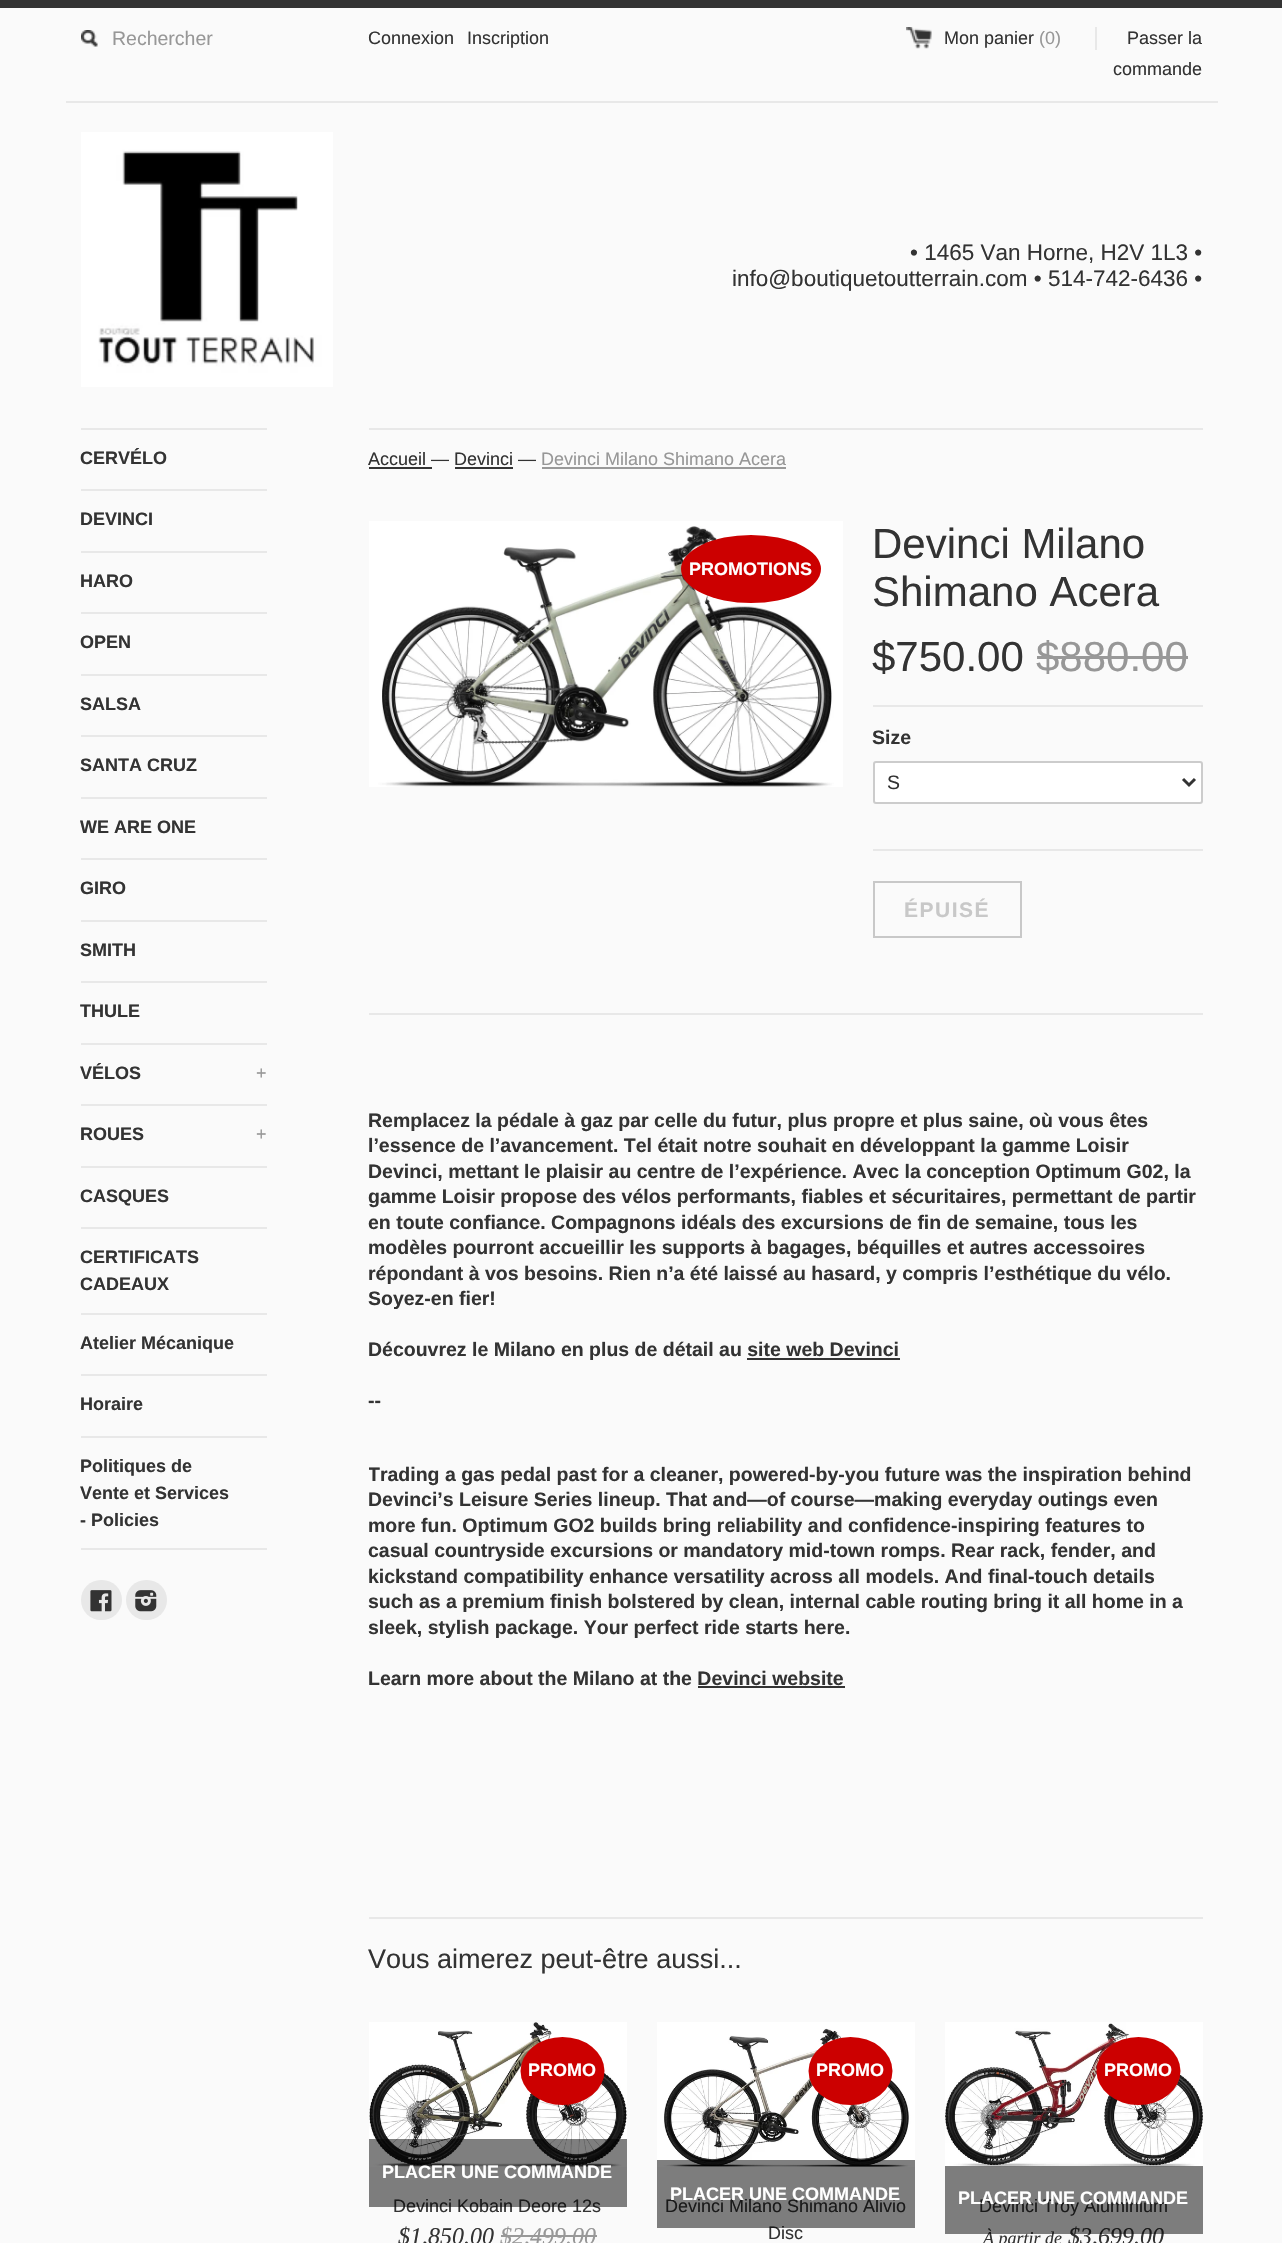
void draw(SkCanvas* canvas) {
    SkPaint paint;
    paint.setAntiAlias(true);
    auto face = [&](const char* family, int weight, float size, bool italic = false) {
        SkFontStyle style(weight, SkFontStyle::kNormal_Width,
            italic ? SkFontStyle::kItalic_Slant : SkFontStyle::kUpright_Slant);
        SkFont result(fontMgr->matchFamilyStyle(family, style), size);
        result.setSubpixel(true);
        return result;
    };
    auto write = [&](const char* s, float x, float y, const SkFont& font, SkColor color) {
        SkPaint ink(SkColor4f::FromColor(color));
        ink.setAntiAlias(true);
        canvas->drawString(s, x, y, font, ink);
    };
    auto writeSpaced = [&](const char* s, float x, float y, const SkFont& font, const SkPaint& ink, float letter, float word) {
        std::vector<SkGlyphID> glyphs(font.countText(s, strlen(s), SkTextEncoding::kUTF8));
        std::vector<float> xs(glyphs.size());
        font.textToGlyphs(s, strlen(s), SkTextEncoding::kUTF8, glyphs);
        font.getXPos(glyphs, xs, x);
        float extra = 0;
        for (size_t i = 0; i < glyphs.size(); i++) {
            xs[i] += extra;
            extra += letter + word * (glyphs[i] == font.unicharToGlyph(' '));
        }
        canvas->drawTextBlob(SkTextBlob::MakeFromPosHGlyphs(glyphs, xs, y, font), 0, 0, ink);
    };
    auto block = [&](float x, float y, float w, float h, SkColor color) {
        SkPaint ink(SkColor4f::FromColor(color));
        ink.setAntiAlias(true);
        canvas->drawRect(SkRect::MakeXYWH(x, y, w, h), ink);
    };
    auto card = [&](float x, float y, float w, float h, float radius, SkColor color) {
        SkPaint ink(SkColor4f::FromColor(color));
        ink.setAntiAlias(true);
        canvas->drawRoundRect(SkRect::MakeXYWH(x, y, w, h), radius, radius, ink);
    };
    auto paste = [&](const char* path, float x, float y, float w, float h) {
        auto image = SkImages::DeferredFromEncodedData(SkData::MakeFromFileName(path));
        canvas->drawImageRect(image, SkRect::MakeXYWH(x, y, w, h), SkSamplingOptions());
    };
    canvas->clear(SkColorSetRGB(250, 250, 250));
    block(0, 0, 1282, 8, SkColorSetRGB(51, 51, 51));
    block(66, 101, 1152, 2, SkColorSetRGB(232, 232, 232));
    paste("pic1.png", 81, 30, 17, 17);
    auto kFont1 = face("Liberation Sans", 400, 19.5f);
    write("Rechercher", 112, 45, kFont1, SkColorSetRGB(151, 151, 151));
    auto kFont2 = face("Arimo", 400, 18);
    write("Connexion", 368, 44, kFont2, SkColorSetRGB(51, 51, 51));
    write("Inscription", 467, 44, kFont2, SkColorSetRGB(51, 51, 51));
    paste("pic2.png", 906, 27, 26, 22);
    write("Mon panier", 944, 44, kFont2, SkColorSetRGB(51, 51, 51));
    write("(0)", 1039, 44, kFont2, SkColorSetRGB(151, 151, 151));
    write("Passer la", 1127, 44, kFont2, SkColorSetRGB(51, 51, 51));
    block(1095, 27, 2, 23, SkColorSetRGB(232, 232, 232));
    write("commande", 1113, 75, kFont2, SkColorSetRGB(51, 51, 51));
    paste("pic3.png", 81, 132, 252, 255);
    auto kFont3 = face("Arimo", 400, 22.5f);
    write("• 1465 Van Horne, H2V 1L3 •", 910, 260, kFont3, SkColorSetRGB(51, 51, 51));
    write("info@boutiquetoutterrain.com • 514-742-6436 •", 732, 286, kFont3, SkColorSetRGB(51, 51, 51));
    block(81, 1548, 186, 2, SkColorSetRGB(232, 232, 232));
    block(81, 428, 186, 2, SkColorSetRGB(232, 232, 232));
    auto kFont4 = face("Arimo", 700, 18);
    write("CERVÉLO", 80, 464, kFont4, SkColorSetRGB(51, 51, 51));
    block(81, 489, 186, 2, SkColorSetRGB(232, 232, 232));
    write("DEVINCI", 80, 525, kFont4, SkColorSetRGB(51, 51, 51));
    block(81, 551, 186, 2, SkColorSetRGB(232, 232, 232));
    write("HARO", 80, 587, kFont4, SkColorSetRGB(51, 51, 51));
    block(81, 612, 186, 2, SkColorSetRGB(232, 232, 232));
    write("OPEN", 80, 648, kFont4, SkColorSetRGB(51, 51, 51));
    block(81, 674, 186, 2, SkColorSetRGB(232, 232, 232));
    write("SALSA", 80, 710, kFont4, SkColorSetRGB(51, 51, 51));
    block(81, 735, 186, 2, SkColorSetRGB(232, 232, 232));
    write("SANTA CRUZ", 80, 771, kFont4, SkColorSetRGB(51, 51, 51));
    block(81, 797, 186, 2, SkColorSetRGB(232, 232, 232));
    write("WE ARE ONE", 80, 833, kFont4, SkColorSetRGB(51, 51, 51));
    block(81, 858, 186, 2, SkColorSetRGB(232, 232, 232));
    write("GIRO", 80, 894, kFont4, SkColorSetRGB(51, 51, 51));
    block(81, 920, 186, 2, SkColorSetRGB(232, 232, 232));
    write("SMITH", 80, 956, kFont4, SkColorSetRGB(51, 51, 51));
    block(81, 981, 186, 2, SkColorSetRGB(232, 232, 232));
    write("THULE", 80, 1017, kFont4, SkColorSetRGB(51, 51, 51));
    block(81, 1043, 186, 2, SkColorSetRGB(232, 232, 232));
    write("VÉLOS", 80, 1079, kFont4, SkColorSetRGB(51, 51, 51));
    write("+", 256, 1079, kFont2, SkColorSetRGB(151, 151, 151));
    block(81, 1104, 186, 2, SkColorSetRGB(232, 232, 232));
    write("ROUES", 80, 1140, kFont4, SkColorSetRGB(51, 51, 51));
    write("+", 256, 1140, kFont2, SkColorSetRGB(151, 151, 151));
    block(81, 1166, 186, 2, SkColorSetRGB(232, 232, 232));
    write("CASQUES", 80, 1202, kFont4, SkColorSetRGB(51, 51, 51));
    block(81, 1227, 186, 2, SkColorSetRGB(232, 232, 232));
    write("CERTIFICATS", 80, 1263, kFont4, SkColorSetRGB(51, 51, 51));
    write("CADEAUX", 80, 1290, kFont4, SkColorSetRGB(51, 51, 51));
    block(81, 1313, 186, 2, SkColorSetRGB(232, 232, 232));
    write("Atelier Mécanique", 80, 1349, kFont4, SkColorSetRGB(51, 51, 51));
    block(81, 1374, 186, 2, SkColorSetRGB(232, 232, 232));
    write("Horaire", 80, 1410, kFont4, SkColorSetRGB(51, 51, 51));
    block(81, 1436, 186, 2, SkColorSetRGB(232, 232, 232));
    write("Politiques de", 80, 1472, kFont4, SkColorSetRGB(51, 51, 51));
    write("Vente et Services", 80, 1499, kFont4, SkColorSetRGB(51, 51, 51));
    write("- Policies", 80, 1526, kFont4, SkColorSetRGB(51, 51, 51));
    card(81, 1580, 41, 40, 20, SkColorSetRGB(232, 232, 232));
    paste("pic4.png", 90, 1590, 22, 22);
    card(126, 1580, 41, 40, 20, SkColorSetRGB(232, 232, 232));
    paste("pic5.png", 135, 1590, 22, 22);
    block(369, 428, 834, 2, SkColorSetRGB(232, 232, 232));
    write("Accueil — Devinci —", 368, 465, kFont2, SkColorSetRGB(51, 51, 51));
    block(369, 467, 63, 2, SkColorSetRGB(51, 51, 51));
    write("Devinci Milano Shimano Acera", 541, 465, kFont2, SkColorSetRGB(151, 151, 151));
    block(455, 467, 58, 2, SkColorSetRGB(51, 51, 51));
    block(542, 467, 244, 2, SkColorSetRGB(153, 153, 153));
    paste("pic6.png", 369, 521, 474, 266);
    paint.setColor(SkColorSetRGB(204, 0, 0));
    canvas->drawOval(SkRect::MakeXYWH(681, 535, 140, 68), paint);
    write("PROMOTIONS", 689, 575, kFont4, SK_ColorWHITE);
    auto kFont5 = face("Arimo", 400, 42);
    write("Devinci Milano", 872, 558, kFont5, SkColorSetRGB(51, 51, 51));
    write("Shimano Acera", 872, 606, kFont5, SkColorSetRGB(51, 51, 51));
    write("$750.00", 872, 671, kFont5, SkColorSetRGB(51, 51, 51));
    write("$880.00", 1036, 671, kFont5, SkColorSetRGB(151, 151, 151));
    block(1037, 656, 151, 3, SkColorSetRGB(153, 153, 153));
    block(873, 705, 330, 2, SkColorSetRGB(232, 232, 232));
    block(873, 849, 330, 2, SkColorSetRGB(232, 232, 232));
    auto kFont6 = face("Arimo", 700, 19.5f);
    write("Size", 872, 744, kFont6, SkColorSetRGB(51, 51, 51));
    paint.setColor(SK_ColorWHITE);
    canvas->drawRoundRect(SkRect::MakeXYWH(874, 762, 328, 41), 2, 2, paint);
    paint.setStyle(SkPaint::kStroke_Style);
    paint.setStrokeWidth(2);
    paint.setColor(SkColorSetRGB(204, 204, 204));
    canvas->drawRoundRect(SkRect::MakeXYWH(874, 762, 328, 41), 2, 2, paint);
    paint.setStrokeWidth(3);
    paint.setColor(SkColorSetRGB(51, 51, 51));
    canvas->drawPath(SkPathBuilder().moveTo(1183, 779).lineTo(1189, 785).lineTo(1195, 779).detach(), paint);
    write("S", 887, 789, kFont1, SkColorSetRGB(51, 51, 51));
    paint.setStrokeWidth(2);
    paint.setColor(SkColorSetRGB(200, 200, 200));
    canvas->drawRect(SkRect::MakeXYWH(874, 882, 147, 55), paint);
    auto kFont7 = face("Arimo", 700, 21);
    paint.setStyle(SkPaint::kFill_Style);
    writeSpaced("ÉPUISÉ", 904, 917, kFont7, paint, 1.5f, 0);
    block(369, 1013, 834, 2, SkColorSetRGB(232, 232, 232));
    write("Remplacez la pédale à gaz par celle du futur, plus propre et plus saine, où vous êtes", 368, 1127, kFont6, SkColorSetRGB(51, 51, 51));
    write("l’essence de l’avancement. Tel était notre souhait en développant la gamme Loisir", 368, 1152, kFont6, SkColorSetRGB(51, 51, 51));
    write("Devinci, mettant le plaisir au centre de l’expérience. Avec la conception Optimum G02, la", 368, 1178, kFont6, SkColorSetRGB(51, 51, 51));
    write("gamme Loisir propose des vélos performants, fiables et sécuritaires, permettant de partir", 368, 1203, kFont6, SkColorSetRGB(51, 51, 51));
    write("en toute confiance. Compagnons idéals des excursions de fin de semaine, tous les", 368, 1229, kFont6, SkColorSetRGB(51, 51, 51));
    write("modèles pourront accueillir les supports à bagages, béquilles et autres accessoires", 368, 1254, kFont6, SkColorSetRGB(51, 51, 51));
    write("répondant à vos besoins. Rien n’a été laissé au hasard, y compris l’esthétique du vélo.", 368, 1280, kFont6, SkColorSetRGB(51, 51, 51));
    write("Soyez-en fier!", 368, 1305, kFont6, SkColorSetRGB(51, 51, 51));
    write("Découvrez le Milano en plus de détail au site web Devinci", 368, 1356, kFont6, SkColorSetRGB(51, 51, 51));
    block(747, 1358, 153, 2, SkColorSetRGB(51, 51, 51));
    write("--", 368, 1407, kFont6, SkColorSetRGB(51, 51, 51));
    canvas->save();
    canvas->clipRect(SkRect::MakeXYWH(369, 429, 834, 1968));
    write("Trading a gas pedal past for a cleaner, powered-by-you future was the inspiration behind", 368, 1481, kFont6, SkColorSetRGB(51, 51, 51));
    canvas->restore();
    write("Devinci’s Leisure Series lineup. That and—of course—making everyday outings even", 368, 1506, kFont6, SkColorSetRGB(51, 51, 51));
    write("more fun. Optimum GO2 builds bring reliability and confidence-inspiring features to", 368, 1532, kFont6, SkColorSetRGB(51, 51, 51));
    write("casual countryside excursions or mandatory mid-town romps. Rear rack, fender, and", 368, 1557, kFont6, SkColorSetRGB(51, 51, 51));
    write("kickstand compatibility enhance versatility across all models. And final-touch details", 368, 1583, kFont6, SkColorSetRGB(51, 51, 51));
    write("such as a premium finish bolstered by clean, internal cable routing bring it all home in a", 368, 1608, kFont6, SkColorSetRGB(51, 51, 51));
    write("sleek, stylish package. Your perfect ride starts here.", 368, 1634, kFont6, SkColorSetRGB(51, 51, 51));
    write("Learn more about the Milano at the Devinci website", 368, 1685, kFont6, SkColorSetRGB(51, 51, 51));
    block(698, 1686, 147, 2, SkColorSetRGB(51, 51, 51));
    block(369, 1917, 834, 2, SkColorSetRGB(232, 232, 232));
    auto kFont8 = face("Arimo", 400, 27);
    write("Vous aimerez peut-être aussi...", 368, 1968, kFont8, SkColorSetRGB(51, 51, 51));
    paste("pic7.png", 369, 2022, 258, 145);
    paint.setColor(SkColorSetRGB(204, 0, 0));
    canvas->drawOval(SkRect::MakeXYWH(520.5f, 2037, 84, 68), paint);
    write("PROMO", 528, 2076, kFont4, SK_ColorWHITE);
    write("Devinci Kobain Deore 12s", 393, 2212, kFont2, SkColorSetRGB(51, 51, 51));
    block(369, 2139, 258, 68, SkColorSetARGB(128, 0, 0, 0));
    write("PLACER UNE COMMANDE", 382, 2178, kFont4, SK_ColorWHITE);
    auto kFont9 = face("Liberation Serif", 400, 24, true);
    write("$1,850.00", 398, 2244, kFont9, SkColorSetRGB(51, 51, 51));
    write("$2,499.00", 500, 2244, kFont9, SkColorSetRGB(151, 151, 151));
    block(501, 2235, 96, 2, SkColorSetRGB(153, 153, 153));
    paste("pic8.png", 657, 2022, 258, 145);
    canvas->drawOval(SkRect::MakeXYWH(808.5f, 2037, 84, 68), paint);
    write("PROMO", 816, 2076, kFont4, SK_ColorWHITE);
    write("Devinci Milano Shimano Alivio", 665, 2212, kFont2, SkColorSetRGB(51, 51, 51));
    write("Disc", 768, 2239, kFont2, SkColorSetRGB(51, 51, 51));
    block(657, 2160, 258, 68, SkColorSetARGB(128, 0, 0, 0));
    write("PLACER UNE COMMANDE", 670, 2200, kFont4, SK_ColorWHITE);
    paste("pic9.png", 945, 2022, 258, 145);
    canvas->drawOval(SkRect::MakeXYWH(1096.5f, 2037, 84, 68), paint);
    write("PROMO", 1104, 2076, kFont4, SK_ColorWHITE);
    write("Devinci Troy Aluminium", 979, 2212, kFont2, SkColorSetRGB(51, 51, 51));
    auto kFont10 = face("Liberation Serif", 400, 18, true);
    write("À partir de", 983, 2244, kFont10, SkColorSetRGB(51, 51, 51));
    write("$3,699.00", 1068, 2244, kFont9, SkColorSetRGB(51, 51, 51));
    block(945, 2166, 258, 68, SkColorSetARGB(128, 0, 0, 0));
    write("PLACER UNE COMMANDE", 958, 2204, kFont4, SK_ColorWHITE);
}
